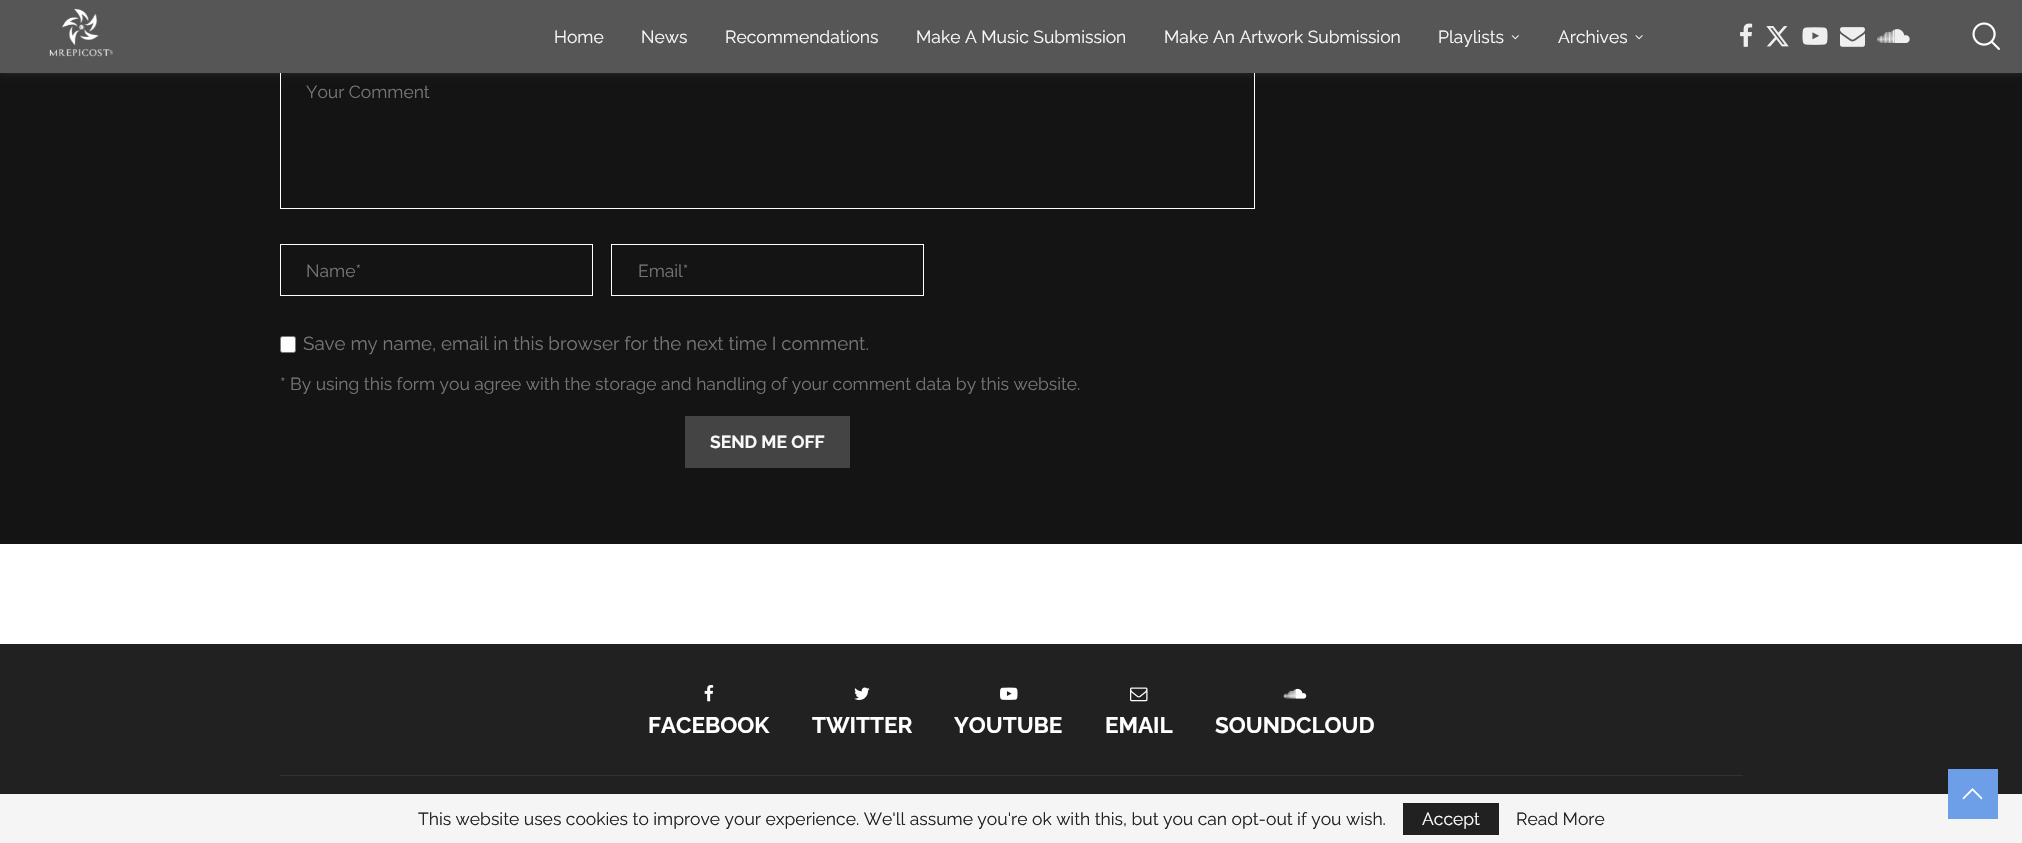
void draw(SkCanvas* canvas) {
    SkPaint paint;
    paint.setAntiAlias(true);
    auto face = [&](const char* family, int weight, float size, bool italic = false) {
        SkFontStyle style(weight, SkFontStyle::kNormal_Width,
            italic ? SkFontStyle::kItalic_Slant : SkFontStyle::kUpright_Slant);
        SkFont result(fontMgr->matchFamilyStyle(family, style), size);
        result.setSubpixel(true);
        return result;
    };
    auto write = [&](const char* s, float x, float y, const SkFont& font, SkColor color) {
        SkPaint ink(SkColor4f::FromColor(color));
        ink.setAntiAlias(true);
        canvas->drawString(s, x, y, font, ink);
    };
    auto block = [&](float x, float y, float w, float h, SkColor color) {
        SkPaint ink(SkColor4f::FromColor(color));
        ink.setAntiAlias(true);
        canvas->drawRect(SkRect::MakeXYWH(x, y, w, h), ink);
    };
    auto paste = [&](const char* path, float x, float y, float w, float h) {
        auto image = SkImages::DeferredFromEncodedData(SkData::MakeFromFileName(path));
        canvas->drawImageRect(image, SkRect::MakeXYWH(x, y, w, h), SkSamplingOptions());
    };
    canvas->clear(SK_ColorWHITE);
    block(0, 73, 2022, 471, SkColorSetRGB(20, 20, 20));
    paint.setStyle(SkPaint::kStroke_Style);
    paint.setStrokeWidth(1);
    paint.setColor(SK_ColorWHITE);
    canvas->drawRect(SkRect::MakeXYWH(280.5f, 59.5f, 974, 149), paint);
    paint.setStyle(SkPaint::kFill_Style);
    paint.setColor(SkColorSetARGB(20, 255, 255, 255));
    paint.setMaskFilter(SkMaskFilter::MakeBlur(kNormal_SkBlurStyle, 3));
    canvas->drawRect(SkRect::MakeXYWH(0, 1, 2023, 73), paint);
    paint.setMaskFilter(nullptr);
    block(0, 0, 2022, 73, SkColorSetRGB(86, 86, 86));
    paste("pic1.png", 49, 8, 64, 49);
    auto kFont1 = face("Raleway", 100, 17.5f);
    write("Home", 554, 43, kFont1, SkColorSetRGB(249, 249, 249));
    write("News", 641, 43, kFont1, SkColorSetRGB(249, 249, 249));
    write("Recommendations", 725, 43, kFont1, SkColorSetRGB(249, 249, 249));
    write("Make A Music Submission", 916, 43, kFont1, SkColorSetRGB(249, 249, 249));
    write("Make An Artwork Submission", 1164, 43, kFont1, SkColorSetRGB(249, 249, 249));
    write("Playlists", 1438, 43, kFont1, SkColorSetRGB(249, 249, 249));
    paste("pic2.png", 1511, 35, 8, 5);
    write("Archives", 1558, 43, kFont1, SkColorSetRGB(249, 249, 249));
    paste("pic3.png", 1635, 35, 8, 5);
    paste("pic4.png", 1740, 23, 13, 24);
    paste("pic5.png", 1766, 26, 23, 21);
    paste("pic6.png", 1802, 27, 26, 18);
    paste("pic7.png", 1840, 27, 25, 20);
    paste("pic8.png", 1877, 29, 33, 14);
    paste("pic9.png", 1972, 22, 28, 28);
    write("Your Comment", 306, 98, kFont1, SkColorSetRGB(117, 117, 117));
    paint.setStyle(SkPaint::kStroke_Style);
    paint.setColor(SK_ColorWHITE);
    canvas->drawRect(SkRect::MakeXYWH(280.5f, 244.5f, 312, 51), paint);
    write("Name*", 306, 277, kFont1, SkColorSetRGB(117, 117, 117));
    canvas->drawRect(SkRect::MakeXYWH(611.5f, 244.5f, 312, 51), paint);
    write("Email*", 638, 277, kFont1, SkColorSetRGB(117, 117, 117));
    paint.setStyle(SkPaint::kFill_Style);
    canvas->drawRoundRect(SkRect::MakeXYWH(280.5f, 336.5f, 15, 16), 2, 2, paint);
    paint.setStyle(SkPaint::kStroke_Style);
    paint.setColor(SkColorSetRGB(118, 118, 118));
    canvas->drawRoundRect(SkRect::MakeXYWH(280.5f, 336.5f, 15, 16), 2, 2, paint);
    auto kFont2 = face("Raleway", 100, 18.75f);
    write("Save my name, email in this browser for the next time I comment.", 303, 350, kFont2, SkColorSetRGB(117, 117, 117));
    write("* By using this form you agree with the storage and handling of your comment data by this website.", 280, 390, kFont1, SkColorSetRGB(117, 117, 117));
    block(685, 416, 165, 52, SkColorSetRGB(68, 68, 68));
    auto kFont3 = face("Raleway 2", 100, 17.5f);
    write("SEND ME OFF", 710, 448, kFont3, SkColorSetRGB(249, 249, 249));
    block(0, 644, 2022, 150, SkColorSetRGB(33, 33, 33));
    block(280, 775, 1463, 1, SkColorSetRGB(49, 49, 49));
    paste("pic10.png", 704, 685, 10, 17);
    auto kFont4 = face("Raleway 2", 100, 22.5f);
    write("FACEBOOK", 648, 733, kFont4, SK_ColorWHITE);
    paste("pic11.png", 854, 687, 16, 13);
    write("TWITTER", 812, 733, kFont4, SK_ColorWHITE);
    paste("pic12.png", 1000, 687, 18, 13);
    write("YOUTUBE", 954, 733, kFont4, SK_ColorWHITE);
    paste("pic13.png", 1130, 687, 18, 15);
    write("EMAIL", 1105, 733, kFont4, SK_ColorWHITE);
    paste("pic14.png", 1283, 688, 24, 11);
    write("SOUNDCLOUD", 1215, 733, kFont4, SK_ColorWHITE);
    block(0, 794, 2022, 49, SkColorSetRGB(245, 245, 245));
    write("This website uses cookies to improve your experience. We'll assume you're ok with this, but you can opt-out if you wish.", 418, 825, kFont1, SkColorSetRGB(33, 33, 33));
    block(1403, 803, 96, 32, SkColorSetRGB(33, 33, 33));
    write("Accept", 1422, 825, kFont1, SK_ColorWHITE);
    write("Read More", 1516, 825, kFont1, SkColorSetRGB(33, 33, 33));
    block(1948, 769, 50, 50, SkColorSetRGB(109, 158, 232));
    paint.setStyle(SkPaint::kFill_Style);
    paint.setColor(SK_ColorWHITE);
    canvas->drawPath(SkPathBuilder().moveTo(1972.5f, 788).lineTo(1962.5f, 798).lineTo(1963.5f, 799.5f).lineTo(1972.5f, 790.5f).lineTo(1981.5f, 799.5f).lineTo(1982.5f, 798).close().detach(), paint);
}
